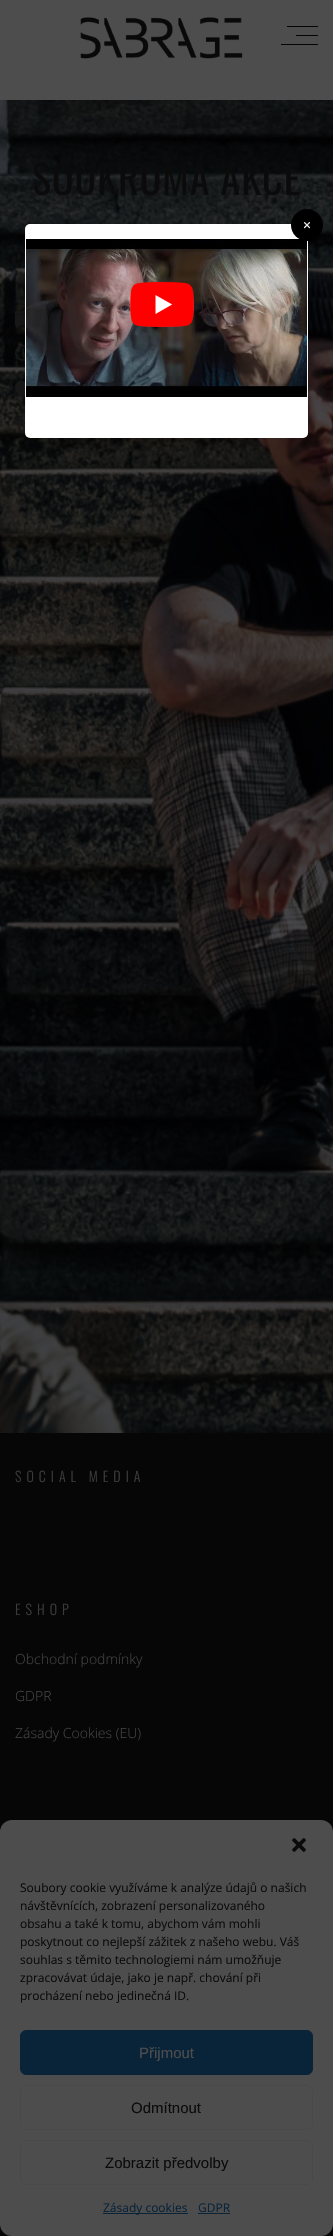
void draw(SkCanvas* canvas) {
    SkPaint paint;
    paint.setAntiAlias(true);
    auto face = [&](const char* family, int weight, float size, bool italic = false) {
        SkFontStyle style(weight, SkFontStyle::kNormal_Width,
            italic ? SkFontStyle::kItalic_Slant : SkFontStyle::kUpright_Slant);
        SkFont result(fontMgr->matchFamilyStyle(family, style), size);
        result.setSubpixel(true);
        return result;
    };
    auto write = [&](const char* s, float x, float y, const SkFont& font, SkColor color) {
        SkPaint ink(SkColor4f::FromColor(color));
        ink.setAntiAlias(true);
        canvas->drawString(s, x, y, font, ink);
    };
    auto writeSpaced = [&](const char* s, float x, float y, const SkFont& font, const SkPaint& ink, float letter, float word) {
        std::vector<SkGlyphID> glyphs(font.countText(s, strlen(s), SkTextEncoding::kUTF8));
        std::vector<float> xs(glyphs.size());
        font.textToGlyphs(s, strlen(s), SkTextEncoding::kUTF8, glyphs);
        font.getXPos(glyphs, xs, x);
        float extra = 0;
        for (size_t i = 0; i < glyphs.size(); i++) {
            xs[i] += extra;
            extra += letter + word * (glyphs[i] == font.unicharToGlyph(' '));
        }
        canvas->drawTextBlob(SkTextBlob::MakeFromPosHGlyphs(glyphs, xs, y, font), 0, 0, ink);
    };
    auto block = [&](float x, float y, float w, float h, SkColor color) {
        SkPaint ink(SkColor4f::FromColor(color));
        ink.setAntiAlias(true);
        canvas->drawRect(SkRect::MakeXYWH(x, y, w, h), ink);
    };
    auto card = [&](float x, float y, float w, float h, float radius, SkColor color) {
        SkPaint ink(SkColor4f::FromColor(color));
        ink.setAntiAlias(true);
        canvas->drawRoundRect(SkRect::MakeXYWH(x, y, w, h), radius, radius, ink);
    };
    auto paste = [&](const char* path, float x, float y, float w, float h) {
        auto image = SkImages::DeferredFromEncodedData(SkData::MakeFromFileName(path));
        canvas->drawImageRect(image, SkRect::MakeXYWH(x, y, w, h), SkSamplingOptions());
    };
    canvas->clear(SkColorSetRGB(77, 77, 77));
    paste("pic1.png", 80, 17, 163, 42);
    block(287, 26, 31, 1, SkColorSetRGB(4, 4, 4));
    block(296, 35, 22, 1, SkColorSetRGB(4, 4, 4));
    block(281, 44, 37, 1, SkColorSetRGB(4, 4, 4));
    paste("pic2.png", 0, 100, 333, 1333);
    auto kFont1 = face("Oswald", 400, 40);
    paint.setColor(SkColorSetRGB(11, 11, 11));
    writeSpaced("SOUKROMÁ AKCE", 32, 195, kFont1, paint, 1, 0);
    paste("pic3.png", 15, 309, 10, 16);
    paste("pic4.png", 15, 345, 10, 16);
    paste("pic5.png", 15, 381, 10, 16);
    paste("pic6.png", 15, 417, 9, 16);
    block(0, 1433, 333, 803, SkColorSetRGB(6, 6, 6));
    auto kFont2 = face("Oswald", 300, 14);
    paint.setColor(SkColorSetRGB(59, 59, 59));
    writeSpaced("SOCIAL MEDIA", 15, 1482, kFont2, paint, 5, 0);
    writeSpaced("ESHOP", 15, 1615, kFont2, paint, 5, 0);
    auto kFont3 = face("Open Sans", 300, 14);
    write("Obchodní podmínky", 15, 1664, kFont3, SkColorSetRGB(66, 66, 66));
    write("GDPR", 15, 1701, kFont3, SkColorSetRGB(66, 66, 66));
    write("Zásady Cookies (EU)", 15, 1738, kFont3, SkColorSetRGB(66, 66, 66));
    card(25, 224, 283, 214, 5, SK_ColorWHITE);
    paste("pic7.png", 26, 239, 281, 158);
    paint.setColor(SK_ColorBLACK);
    canvas->drawCircle(307, 225, 16, paint);
    auto kFont4 = face("Open Sans", 400, 14);
    write("×", 303, 230, kFont4, SK_ColorWHITE);
    paste("pic8.png", 130, 282, 64, 45);
    card(0, 1820, 333, 416, 12, SkColorSetRGB(77, 77, 77));
    paste("pic9.png", 292, 1838, 14, 14);
    auto kFont5 = face("Open Sans", 400, 12);
    write("Soubory cookie využíváme k analýze údajů o našich", 20, 1892, kFont5, SkColorSetRGB(11, 11, 11));
    write("návštěvnících, zobrazení personalizovaného", 20, 1910, kFont5, SkColorSetRGB(11, 11, 11));
    write("obsahu a také k tomu, abychom vám mohli", 20, 1928, kFont5, SkColorSetRGB(11, 11, 11));
    write("poskytnout co nejlepší zážitek z našeho webu. Váš", 20, 1946, kFont5, SkColorSetRGB(11, 11, 11));
    write("souhlas s těmito technologiemi nám umožňuje", 20, 1964, kFont5, SkColorSetRGB(11, 11, 11));
    write("zpracovávat údaje, jako je např. chování při", 20, 1982, kFont5, SkColorSetRGB(11, 11, 11));
    write("procházení nebo jedinečná ID.", 20, 2000, kFont5, SkColorSetRGB(11, 11, 11));
    paint.setColor(SkColorSetRGB(9, 35, 57));
    canvas->drawRoundRect(SkRect::MakeXYWH(20.5f, 2030.5f, 292, 44), 5.5f, 5.5f, paint);
    paint.setStyle(SkPaint::kStroke_Style);
    paint.setStrokeWidth(1);
    canvas->drawRoundRect(SkRect::MakeXYWH(20.5f, 2030.5f, 292, 44), 5.5f, 5.5f, paint);
    auto kFont6 = face("Liberation Sans", 400, 15);
    write("Přijmout", 139, 2058, kFont6, SkColorSetRGB(77, 77, 77));
    paint.setColor(SkColorSetRGB(73, 73, 73));
    canvas->drawRoundRect(SkRect::MakeXYWH(20.5f, 2085.5f, 292, 44), 5.5f, 5.5f, paint);
    write("Odmítnout", 131, 2113, kFont6, SkColorSetRGB(11, 11, 11));
    canvas->drawRoundRect(SkRect::MakeXYWH(20.5f, 2140.5f, 292, 44), 5.5f, 5.5f, paint);
    write("Zobrazit předvolby", 105, 2168, kFont6, SkColorSetRGB(11, 11, 11));
    block(103, 2213, 85, 1, SkColorSetRGB(9, 35, 57));
    write("Zásady cookies", 103, 2212, kFont5, SkColorSetRGB(9, 35, 57));
    write("GDPR", 198, 2212, kFont5, SkColorSetRGB(9, 35, 57));
    block(198, 2213, 32, 1, SkColorSetRGB(9, 35, 57));
}
